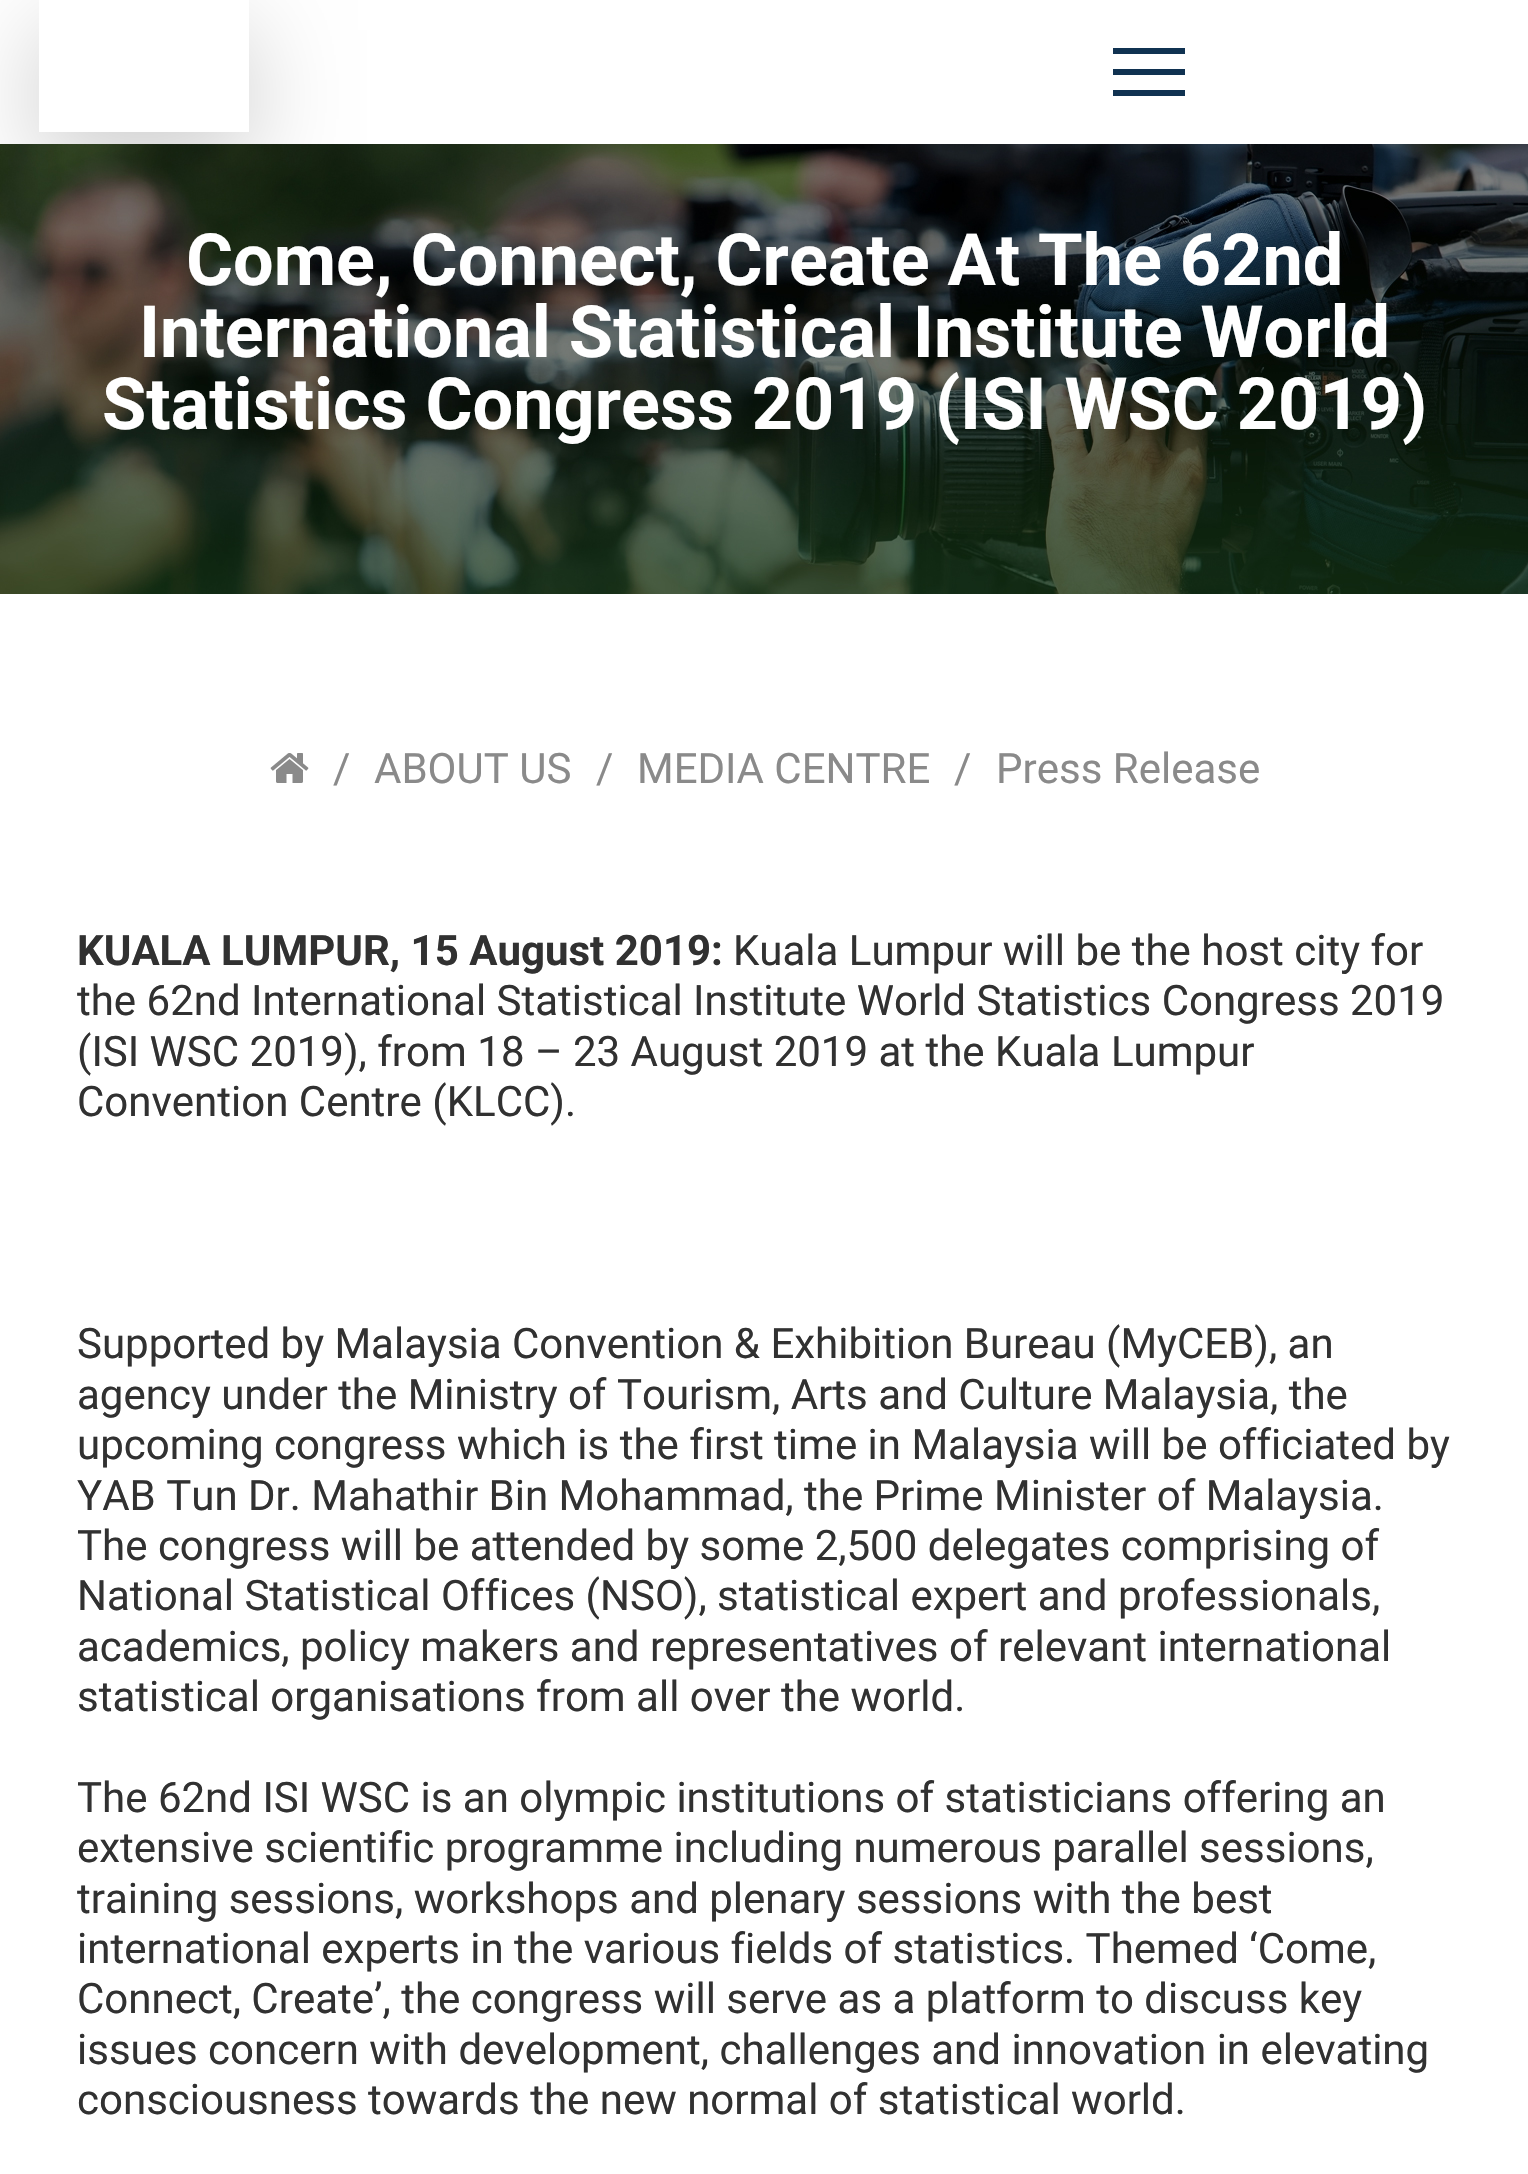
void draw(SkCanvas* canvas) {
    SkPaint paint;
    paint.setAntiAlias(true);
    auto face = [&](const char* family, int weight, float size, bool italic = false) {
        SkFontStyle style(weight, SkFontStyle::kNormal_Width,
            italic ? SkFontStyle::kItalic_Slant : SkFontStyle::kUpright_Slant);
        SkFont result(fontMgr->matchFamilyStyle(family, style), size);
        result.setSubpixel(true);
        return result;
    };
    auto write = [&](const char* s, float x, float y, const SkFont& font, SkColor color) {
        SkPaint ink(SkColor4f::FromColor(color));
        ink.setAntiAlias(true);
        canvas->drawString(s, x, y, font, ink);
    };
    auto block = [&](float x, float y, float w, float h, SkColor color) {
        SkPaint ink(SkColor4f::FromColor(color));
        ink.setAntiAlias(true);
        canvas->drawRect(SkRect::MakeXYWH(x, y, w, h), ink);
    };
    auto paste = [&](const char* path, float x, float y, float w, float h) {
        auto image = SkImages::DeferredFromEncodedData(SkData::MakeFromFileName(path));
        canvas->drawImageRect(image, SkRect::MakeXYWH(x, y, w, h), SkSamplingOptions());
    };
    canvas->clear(SK_ColorWHITE);
    paste("pic1.png", 0, 144, 1528, 450);
    canvas->save();
    canvas->clipPath(SkPathBuilder(SkPathFillType::kEvenOdd).moveTo(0, 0).lineTo(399, 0).lineTo(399, 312).lineTo(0, 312).close().moveTo(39, 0).lineTo(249, 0).lineTo(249, 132).lineTo(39, 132).close().detach(), true);
    paint.setColor(SkColorSetARGB(51, 0, 0, 0));
    paint.setMaskFilter(SkMaskFilter::MakeBlur(kNormal_SkBlurStyle, 49.5f));
    canvas->drawRect(SkRect::MakeXYWH(39, 30, 210, 132), paint);
    paint.setMaskFilter(nullptr);
    canvas->restore();
    block(1113, 48, 72, 6, SkColorSetRGB(16, 50, 81));
    block(1113, 69, 72, 6, SkColorSetRGB(16, 50, 81));
    block(1113, 90, 72, 6, SkColorSetRGB(16, 50, 81));
    auto kFont1 = face("Roboto", 700, 72);
    write("Come, Connect, Create At The 62nd", 186, 285, kFont1, SK_ColorWHITE);
    write("International Statistical Institute World", 139, 357, kFont1, SK_ColorWHITE);
    write("Statistics Congress 2019 (ISI WSC 2019)", 102, 429, kFont1, SK_ColorWHITE);
    paste("pic2.png", 270, 753, 39, 30);
    auto kFont2 = face("Roboto", 400, 42);
    write("/", 333, 783, kFont2, SkColorSetRGB(138, 138, 138));
    write("ABOUT US", 374, 783, kFont2, SkColorSetRGB(138, 138, 138));
    write("/", 596, 783, kFont2, SkColorSetRGB(138, 138, 138));
    write("MEDIA CENTRE", 637, 783, kFont2, SkColorSetRGB(138, 138, 138));
    write("/", 954, 783, kFont2, SkColorSetRGB(138, 138, 138));
    write("Press Release", 996, 783, kFont2, SkColorSetRGB(138, 138, 138));
    auto kFont3 = face("Roboto", 700, 42);
    write("KUALA LUMPUR, 15 August 2019:", 77, 965, kFont3, SkColorSetRGB(49, 49, 49));
    write("Kuala Lumpur will be the host city for", 733, 965, kFont2, SkColorSetRGB(49, 49, 49));
    write("the 62nd International Statistical Institute World Statistics Congress 2019", 77, 1015, kFont2, SkColorSetRGB(49, 49, 49));
    write("(ISI WSC 2019), from 18 – 23 August 2019 at the Kuala Lumpur", 77, 1066, kFont2, SkColorSetRGB(49, 49, 49));
    write("Convention Centre (KLCC).", 77, 1116, kFont2, SkColorSetRGB(49, 49, 49));
    write("Supported by Malaysia Convention & Exhibition Bureau (MyCEB), an", 77, 1358, kFont2, SkColorSetRGB(49, 49, 49));
    write("agency under the Ministry of Tourism, Arts and Culture Malaysia, the", 77, 1409, kFont2, SkColorSetRGB(49, 49, 49));
    write("upcoming congress which is the first time in Malaysia will be officiated by", 77, 1459, kFont2, SkColorSetRGB(49, 49, 49));
    write("YAB Tun Dr. Mahathir Bin Mohammad, the Prime Minister of Malaysia.", 77, 1510, kFont2, SkColorSetRGB(49, 49, 49));
    write("The congress will be attended by some 2,500 delegates comprising of", 77, 1560, kFont2, SkColorSetRGB(49, 49, 49));
    write("National Statistical Offices (NSO), statistical expert and professionals,", 77, 1610, kFont2, SkColorSetRGB(49, 49, 49));
    write("academics, policy makers and representatives of relevant international", 77, 1661, kFont2, SkColorSetRGB(49, 49, 49));
    write("statistical organisations from all over the world.", 77, 1711, kFont2, SkColorSetRGB(49, 49, 49));
    write("The 62nd ISI WSC is an olympic institutions of statisticians offering an", 77, 1812, kFont2, SkColorSetRGB(49, 49, 49));
    write("extensive scientific programme including numerous parallel sessions,", 77, 1862, kFont2, SkColorSetRGB(49, 49, 49));
    write("training sessions, workshops and plenary sessions with the best", 77, 1913, kFont2, SkColorSetRGB(49, 49, 49));
    write("international experts in the various fields of statistics. Themed ‘Come,", 77, 1963, kFont2, SkColorSetRGB(49, 49, 49));
    write("Connect, Create’, the congress will serve as a platform to discuss key", 77, 2013, kFont2, SkColorSetRGB(49, 49, 49));
    write("issues concern with development, challenges and innovation in elevating", 77, 2064, kFont2, SkColorSetRGB(49, 49, 49));
    write("consciousness towards the new normal of statistical world.", 77, 2114, kFont2, SkColorSetRGB(49, 49, 49));
}
